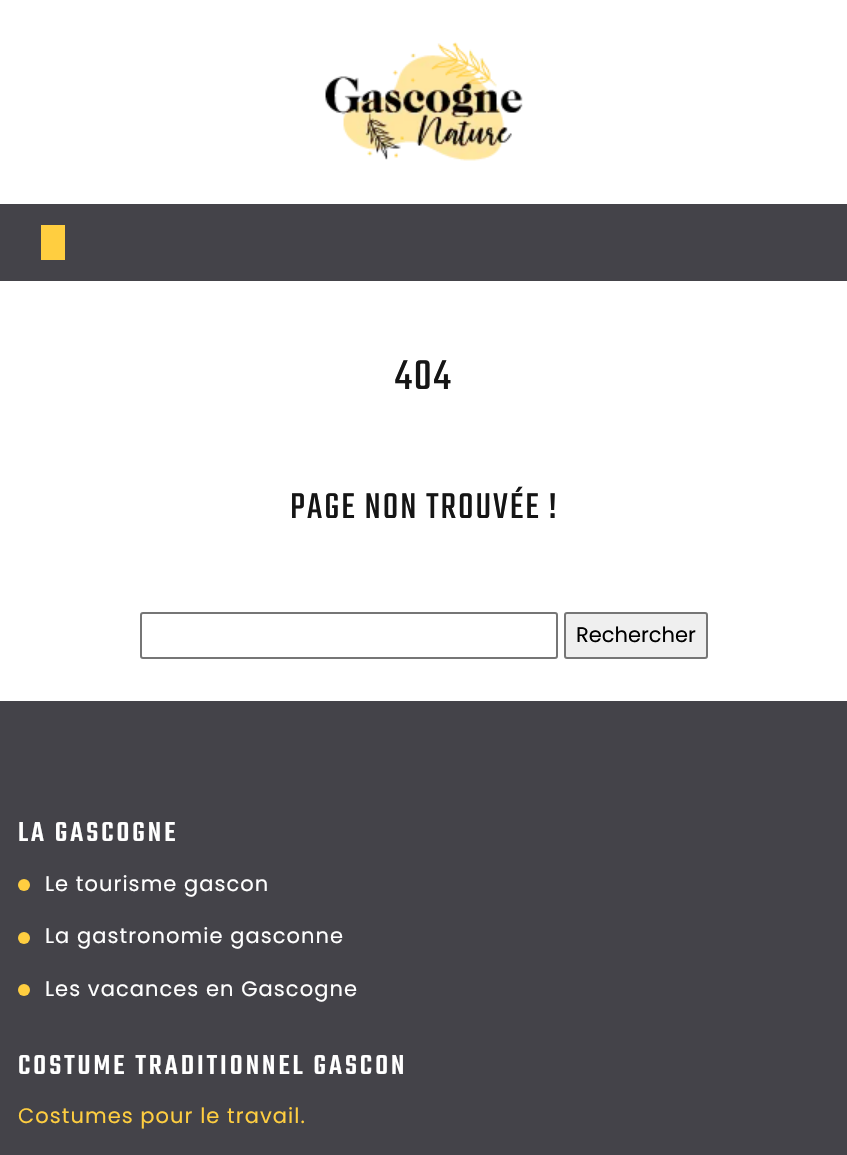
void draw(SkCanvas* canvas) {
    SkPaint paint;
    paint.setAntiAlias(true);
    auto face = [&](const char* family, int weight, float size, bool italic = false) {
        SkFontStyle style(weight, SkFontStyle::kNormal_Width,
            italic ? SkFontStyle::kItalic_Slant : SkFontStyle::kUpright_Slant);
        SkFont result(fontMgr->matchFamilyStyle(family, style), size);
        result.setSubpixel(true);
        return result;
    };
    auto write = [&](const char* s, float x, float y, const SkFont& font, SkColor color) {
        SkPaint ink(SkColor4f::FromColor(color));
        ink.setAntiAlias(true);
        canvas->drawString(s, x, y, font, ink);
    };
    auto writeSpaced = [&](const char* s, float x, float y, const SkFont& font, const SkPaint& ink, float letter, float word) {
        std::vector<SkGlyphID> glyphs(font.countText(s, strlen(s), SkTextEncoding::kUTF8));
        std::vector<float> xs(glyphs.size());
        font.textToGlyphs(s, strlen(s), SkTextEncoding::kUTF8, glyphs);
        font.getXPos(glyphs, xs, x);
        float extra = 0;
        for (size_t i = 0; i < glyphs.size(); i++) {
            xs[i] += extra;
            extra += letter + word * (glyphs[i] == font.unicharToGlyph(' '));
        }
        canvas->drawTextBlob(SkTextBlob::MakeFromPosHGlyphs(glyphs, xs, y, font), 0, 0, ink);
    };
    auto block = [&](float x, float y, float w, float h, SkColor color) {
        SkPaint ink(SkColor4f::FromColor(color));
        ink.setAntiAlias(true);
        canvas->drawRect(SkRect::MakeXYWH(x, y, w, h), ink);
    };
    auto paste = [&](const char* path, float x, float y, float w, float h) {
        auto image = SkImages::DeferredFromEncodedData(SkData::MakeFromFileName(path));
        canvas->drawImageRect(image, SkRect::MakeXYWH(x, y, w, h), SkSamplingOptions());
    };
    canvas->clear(SK_ColorWHITE);
    paste("pic1.png", 325, 42, 198, 119);
    block(0, 204, 847, 77, SkColorSetRGB(68, 67, 73));
    block(41, 225, 24, 35, SkColorSetRGB(255, 206, 64));
    auto kFont1 = face("Teko", 400, 46);
    paint.setColor(SkColorSetRGB(21, 21, 21));
    writeSpaced("404", 395, 389, kFont1, paint, 2, 0);
    auto kFont2 = face("Teko", 400, 39.5f);
    writeSpaced("PAGE NON TROUVÉE !", 290, 518, kFont2, paint, 2, 0);
    paint.setStyle(SkPaint::kStroke_Style);
    paint.setStrokeWidth(2);
    paint.setColor(SkColorSetRGB(118, 118, 118));
    canvas->drawRoundRect(SkRect::MakeXYWH(141, 613, 416, 45), 2, 2, paint);
    paint.setStyle(SkPaint::kFill_Style);
    paint.setColor(SkColorSetRGB(239, 239, 239));
    canvas->drawRoundRect(SkRect::MakeXYWH(565, 613, 142, 45), 2, 2, paint);
    paint.setStyle(SkPaint::kStroke_Style);
    paint.setColor(SkColorSetRGB(118, 118, 118));
    canvas->drawRoundRect(SkRect::MakeXYWH(565, 613, 142, 45), 2, 2, paint);
    auto kFont3 = face("Poppins", 400, 21);
    write("Rechercher", 576, 642, kFont3, SK_ColorBLACK);
    block(0, 701, 847, 454, SkColorSetRGB(68, 67, 73));
    auto kFont4 = face("Teko", 500, 30);
    paint.setStyle(SkPaint::kFill_Style);
    paint.setColor(SK_ColorWHITE);
    writeSpaced("LA GASCOGNE", 18, 841, kFont4, paint, 3, 0);
    paint.setColor(SkColorSetRGB(255, 206, 64));
    canvas->drawCircle(24, 885, 6, paint);
    paint.setColor(SK_ColorWHITE);
    writeSpaced("Le tourisme gascon", 45, 891, kFont3, paint, 1.05f, 0);
    paint.setColor(SkColorSetRGB(255, 206, 64));
    canvas->drawCircle(24, 938, 6, paint);
    paint.setColor(SK_ColorWHITE);
    writeSpaced("La gastronomie gasconne", 45, 943, kFont3, paint, 1.05f, 0);
    paint.setColor(SkColorSetRGB(255, 206, 64));
    canvas->drawCircle(24, 990, 6, paint);
    paint.setColor(SK_ColorWHITE);
    writeSpaced("Les vacances en Gascogne", 45, 996, kFont3, paint, 1.05f, 0);
    writeSpaced("COSTUME TRADITIONNEL GASCON", 18, 1074, kFont4, paint, 3, 0);
    paint.setColor(SkColorSetRGB(255, 206, 64));
    writeSpaced("Costumes pour le travail.", 18, 1123, kFont3, paint, 1.05f, 0);
}
